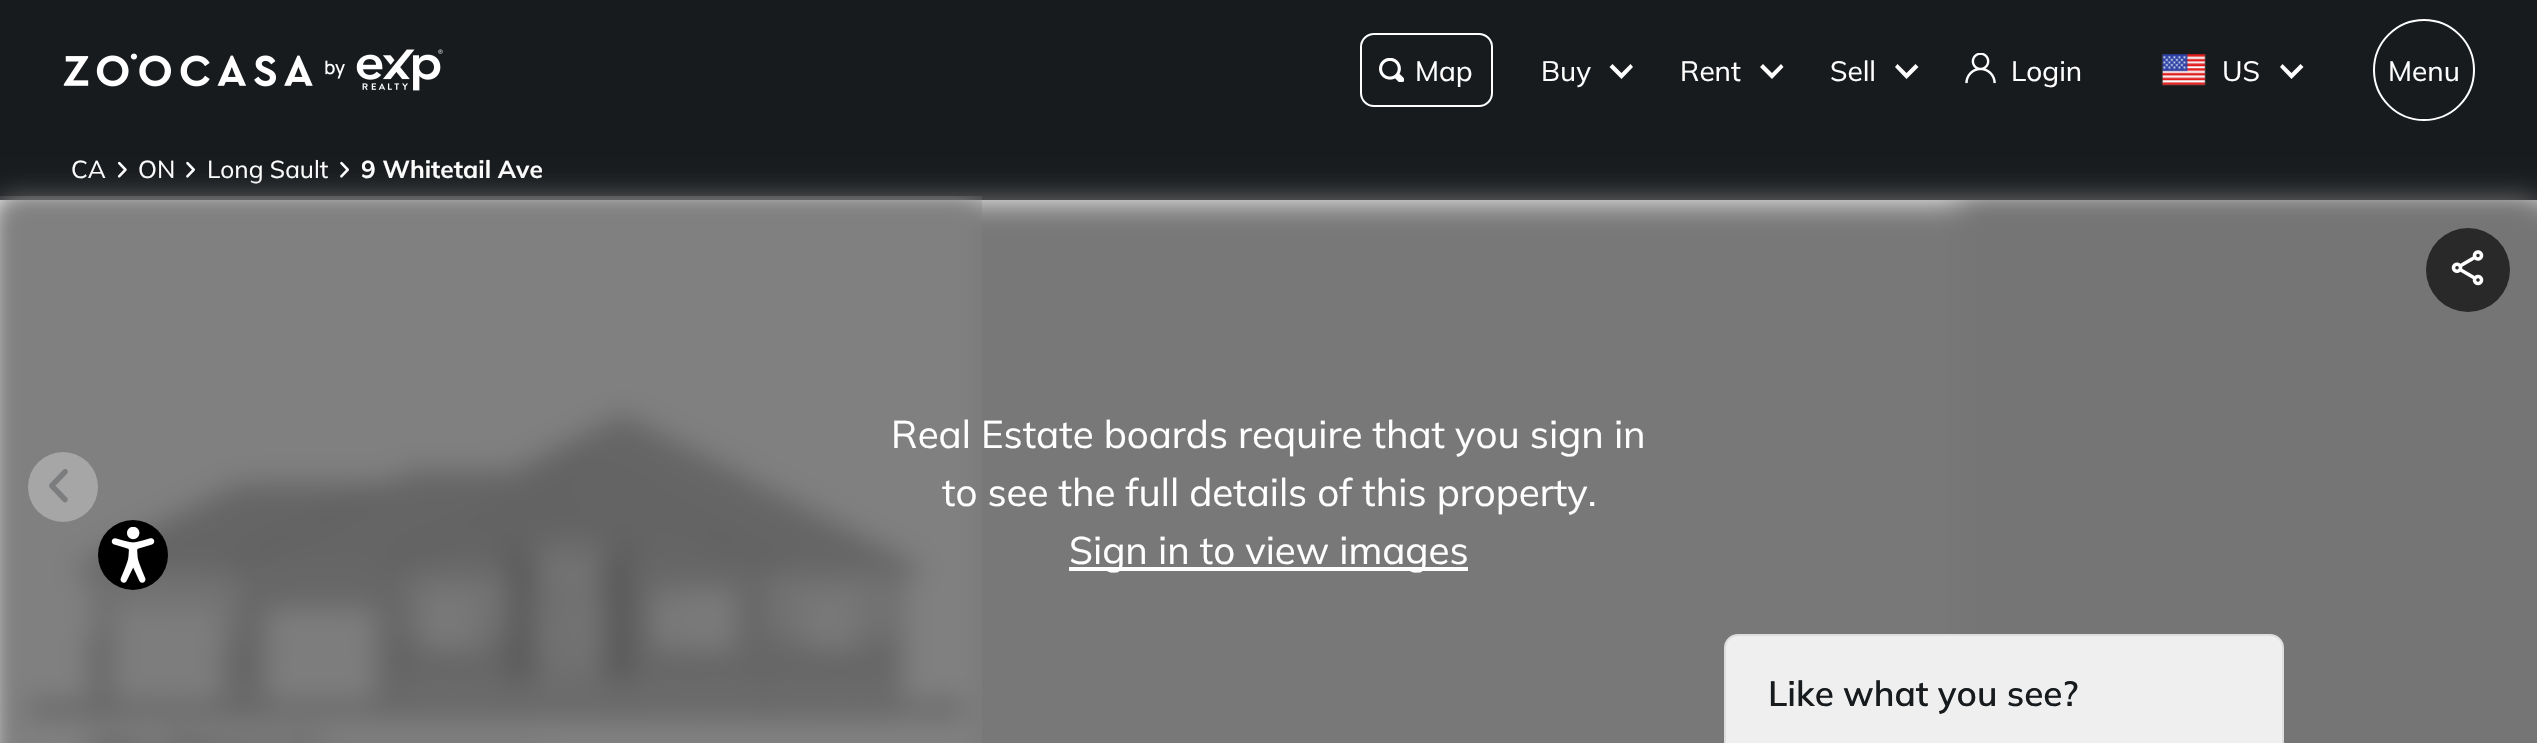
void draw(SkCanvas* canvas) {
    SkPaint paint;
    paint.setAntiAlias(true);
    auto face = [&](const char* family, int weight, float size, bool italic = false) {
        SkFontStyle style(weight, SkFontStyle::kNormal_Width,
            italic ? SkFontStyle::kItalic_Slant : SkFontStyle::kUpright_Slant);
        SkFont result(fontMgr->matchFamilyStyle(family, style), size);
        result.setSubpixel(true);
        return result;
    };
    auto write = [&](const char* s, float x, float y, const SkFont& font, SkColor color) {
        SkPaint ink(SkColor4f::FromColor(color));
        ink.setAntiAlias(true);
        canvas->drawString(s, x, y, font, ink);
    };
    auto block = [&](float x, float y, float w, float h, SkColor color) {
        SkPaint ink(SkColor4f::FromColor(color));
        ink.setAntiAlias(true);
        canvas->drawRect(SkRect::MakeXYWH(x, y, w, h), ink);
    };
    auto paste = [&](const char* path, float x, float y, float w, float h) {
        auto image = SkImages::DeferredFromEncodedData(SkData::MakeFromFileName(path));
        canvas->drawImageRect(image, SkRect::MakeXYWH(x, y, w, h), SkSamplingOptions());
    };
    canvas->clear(SkColorSetRGB(24, 27, 30));
    paste("pic1.png", 63, 49, 380, 42);
    paint.setStyle(SkPaint::kStroke_Style);
    paint.setStrokeWidth(2);
    paint.setColor(SK_ColorWHITE);
    canvas->drawRoundRect(SkRect::MakeXYWH(1361, 34, 131, 72), 13, 13, paint);
    paste("pic2.png", 1379, 58, 25, 24);
    auto kFont1 = face("Mulish", 200, 28);
    write("Map", 1415, 81, kFont1, SK_ColorWHITE);
    write("Buy", 1541, 81, kFont1, SK_ColorWHITE);
    paint.setStyle(SkPaint::kFill_Style);
    canvas->drawPath(SkPathBuilder().moveTo(1630.5f, 64).lineTo(1621.5f, 73).lineTo(1612.5f, 64).lineTo(1609.5f, 67).lineTo(1621.5f, 79).lineTo(1633, 67).close().detach(), paint);
    write("Rent", 1680, 81, kFont1, SK_ColorWHITE);
    canvas->drawPath(SkPathBuilder().moveTo(1781, 64).lineTo(1772, 73).lineTo(1763, 64).lineTo(1760, 67).lineTo(1772, 79).lineTo(1783.5f, 67).close().detach(), paint);
    write("Sell", 1830, 81, kFont1, SK_ColorWHITE);
    canvas->drawPath(SkPathBuilder().moveTo(1915.5f, 64).lineTo(1906.5f, 73).lineTo(1897.5f, 64).lineTo(1895, 67).lineTo(1906.5f, 79).lineTo(1918.5f, 67).close().detach(), paint);
    paste("pic3.png", 1965, 53, 31, 31);
    write("Login", 2011, 81, kFont1, SK_ColorWHITE);
    paste("pic4.png", 2161, 54, 45, 32);
    write("US", 2222, 81, kFont1, SK_ColorWHITE);
    canvas->drawPath(SkPathBuilder().moveTo(2300.5f, 64).lineTo(2291.5f, 73).lineTo(2282.5f, 64).lineTo(2280, 67).lineTo(2291.5f, 79).lineTo(2303.5f, 67).close().detach(), paint);
    paint.setStyle(SkPaint::kStroke_Style);
    canvas->drawCircle(2424, 70, 50, paint);
    write("Menu", 2388, 81, kFont1, SK_ColorWHITE);
    block(0, 200, 2537, 543, SK_ColorWHITE);
    auto kFont2 = face("Mulish", 200, 24.5f);
    write("CA", 71, 178, kFont2, SK_ColorWHITE);
    paste("pic5.png", 117, 161, 10, 17);
    write("ON", 138, 178, kFont2, SK_ColorWHITE);
    paste("pic6.png", 186, 161, 9, 17);
    write("Long Sault", 207, 178, kFont2, SK_ColorWHITE);
    paste("pic6.png", 340, 161, 9, 17);
    auto kFont3 = face("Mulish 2", 200, 24.5f);
    write("9 Whitetail Ave", 361, 178, kFont3, SK_ColorWHITE);
    paint.setStyle(SkPaint::kFill_Style);
    paint.setColor(SkColorSetRGB(120, 120, 120));
    paint.setMaskFilter(SkMaskFilter::MakeBlur(kNormal_SkBlurStyle, 14));
    canvas->drawRect(SkRect::MakeXYWH(0, 200, 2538, 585), paint);
    paint.setMaskFilter(nullptr);
    paste("pic7.png", 0, 196, 982, 547);
    canvas->save();
    canvas->clipRect(SkRect::MakeXYWH(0, 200, 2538, 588));
    paint.setColor(SkColorSetRGB(117, 117, 117));
    paint.setMaskFilter(SkMaskFilter::MakeBlur(kNormal_SkBlurStyle, 14));
    canvas->drawRect(SkRect::MakeXYWH(1960, 200, 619, 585), paint);
    paint.setMaskFilter(nullptr);
    canvas->restore();
    paint.setColor(SkColorSetRGB(41, 41, 41));
    canvas->drawCircle(2468, 270, 42, paint);
    paste("pic8.png", 2451, 250, 33, 36);
    paint.setColor(SkColorSetRGB(166, 166, 166));
    canvas->drawCircle(63, 487, 35, paint);
    paste("pic9.png", 49, 469, 19, 34);
    auto kFont4 = face("Mulish", 200, 38.5f);
    write("Real Estate boards require that you sign in", 891, 448, kFont4, SK_ColorWHITE);
    write("to see the full details of this property.", 942, 506, kFont4, SK_ColorWHITE);
    block(1069, 567, 399, 4, SK_ColorWHITE);
    write("Sign in to view images", 1069, 564, kFont4, SK_ColorWHITE);
    paint.setColor(SkColorSetRGB(239, 239, 239));
    canvas->drawRoundRect(SkRect::MakeXYWH(1725, 635, 558, 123), 13, 13, paint);
    paint.setStyle(SkPaint::kStroke_Style);
    paint.setColor(SkColorSetRGB(222, 222, 222));
    canvas->drawRoundRect(SkRect::MakeXYWH(1725, 635, 558, 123), 13, 13, paint);
    auto kFont5 = face("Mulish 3", 200, 35);
    write("Like what you see?", 1768, 706, kFont5, SkColorSetRGB(24, 27, 30));
    paint.setStyle(SkPaint::kFill_Style);
    paint.setColor(SK_ColorBLACK);
    canvas->drawCircle(133, 555, 35, paint);
    paste("pic10.png", 111, 527, 44, 56);
}
